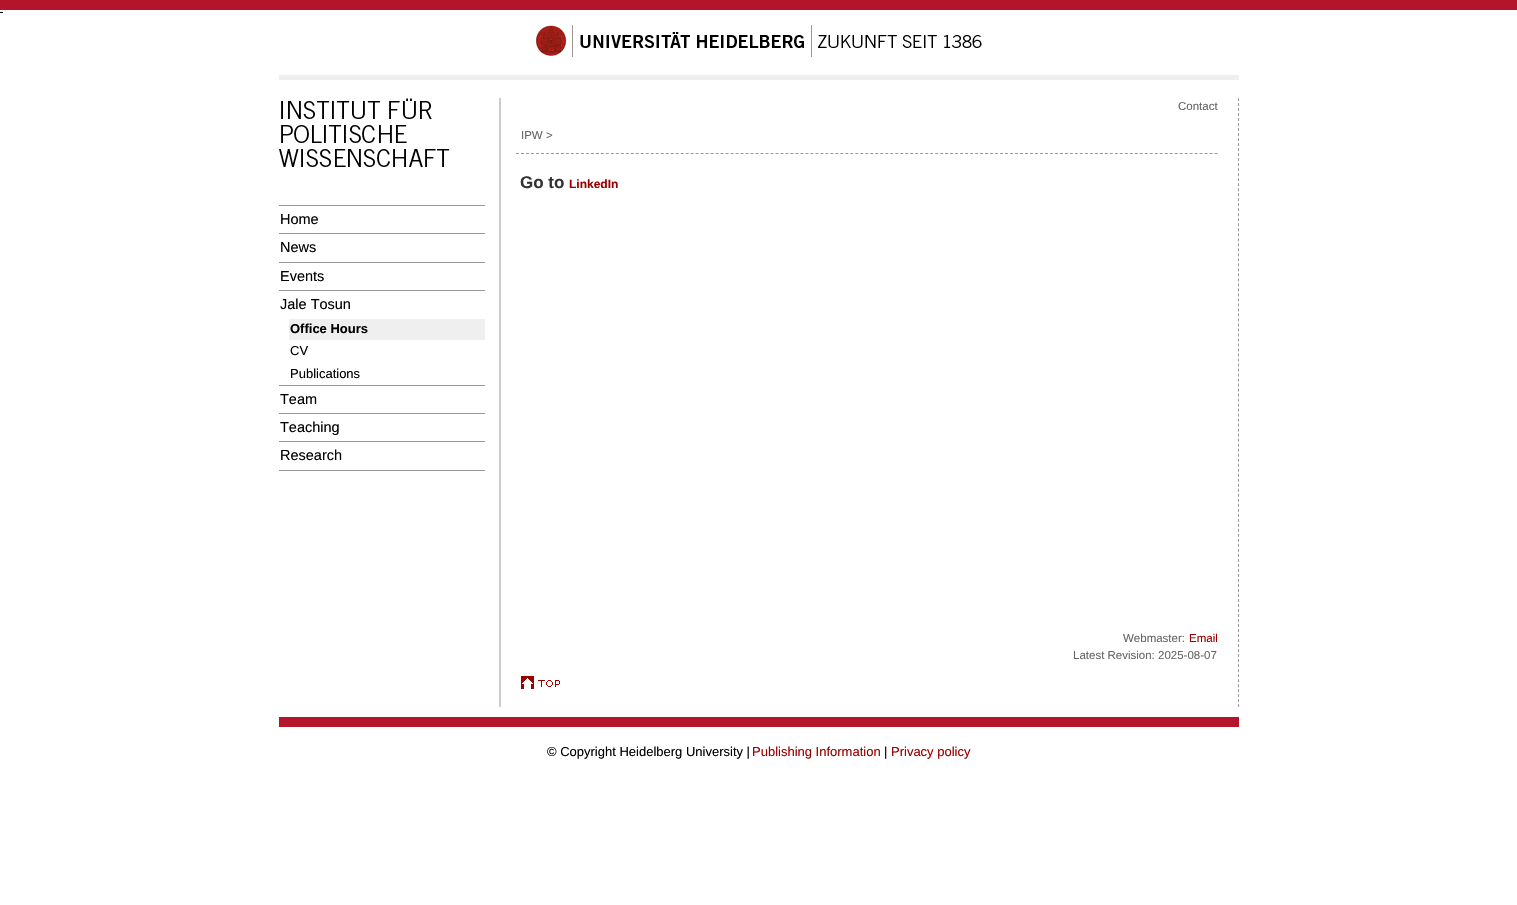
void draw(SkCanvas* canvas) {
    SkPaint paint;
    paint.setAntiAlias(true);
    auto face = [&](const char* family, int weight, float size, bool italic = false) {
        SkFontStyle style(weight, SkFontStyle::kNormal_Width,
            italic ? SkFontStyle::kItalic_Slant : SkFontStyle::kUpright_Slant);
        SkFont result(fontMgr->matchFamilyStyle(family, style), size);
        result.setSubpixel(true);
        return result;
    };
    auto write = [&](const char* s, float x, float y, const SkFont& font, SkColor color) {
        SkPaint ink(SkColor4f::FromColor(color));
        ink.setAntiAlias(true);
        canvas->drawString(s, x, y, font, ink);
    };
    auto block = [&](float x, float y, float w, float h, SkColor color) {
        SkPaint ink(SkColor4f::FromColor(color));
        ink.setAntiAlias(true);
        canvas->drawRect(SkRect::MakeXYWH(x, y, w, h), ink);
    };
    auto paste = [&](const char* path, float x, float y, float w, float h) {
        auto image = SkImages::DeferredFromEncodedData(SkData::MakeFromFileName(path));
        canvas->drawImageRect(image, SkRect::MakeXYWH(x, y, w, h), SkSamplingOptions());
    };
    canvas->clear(SK_ColorWHITE);
    block(0, 0, 1517, 10, SkColorSetRGB(181, 21, 43));
    block(0, 12, 3, 1, SK_ColorBLACK);
    paste("pic1.png", 535, 25, 447, 32);
    block(279, 75, 960, 5, SkColorSetRGB(239, 239, 239));
    paste("pic2.png", 279, 98, 171, 69);
    block(279, 205, 206, 1, SkColorSetRGB(153, 153, 153));
    auto kFont1 = face("Liberation Sans", 400, 14.5f);
    write("Home", 280, 224, kFont1, SK_ColorBLACK);
    block(279, 233, 206, 1, SkColorSetRGB(153, 153, 153));
    write("News", 280, 252, kFont1, SK_ColorBLACK);
    block(279, 262, 206, 1, SkColorSetRGB(153, 153, 153));
    write("Events", 280, 281, kFont1, SK_ColorBLACK);
    block(279, 290, 206, 1, SkColorSetRGB(153, 153, 153));
    write("Jale Tosun", 280, 309, kFont1, SK_ColorBLACK);
    block(289, 319, 196, 21, SkColorSetRGB(239, 239, 239));
    auto kFont2 = face("Liberation Sans", 700, 13);
    write("Office Hours", 290, 333, kFont2, SK_ColorBLACK);
    auto kFont3 = face("Liberation Sans", 400, 13);
    write("CV", 290, 355, kFont3, SK_ColorBLACK);
    write("Publications", 290, 378, kFont3, SK_ColorBLACK);
    block(279, 385, 206, 1, SkColorSetRGB(153, 153, 153));
    write("Team", 280, 404, kFont1, SK_ColorBLACK);
    block(279, 413, 206, 1, SkColorSetRGB(153, 153, 153));
    write("Teaching", 280, 432, kFont1, SK_ColorBLACK);
    block(279, 441, 206, 1, SkColorSetRGB(153, 153, 153));
    write("Research", 280, 460, kFont1, SK_ColorBLACK);
    block(279, 470, 206, 1, SkColorSetRGB(153, 153, 153));
    paint.setStyle(SkPaint::kStroke_Style);
    paint.setStrokeWidth(1);
    paint.setColor(SkColorSetRGB(153, 153, 153));
    paint.setPathEffect(SkDashPathEffect::Make({{3, 2.01f}}, 0));
    canvas->drawPath(SkPathBuilder().moveTo(1238.5f, 98).lineTo(1238.5f, 707).detach(), paint);
    paint.setPathEffect(nullptr);
    block(499, 98, 2, 609, SkColorSetRGB(204, 204, 204));
    auto kFont4 = face("Liberation Sans", 400, 11.5f);
    write("Contact", 1178, 110, kFont4, SkColorSetRGB(102, 102, 102));
    write("IPW >", 521, 139, kFont4, SkColorSetRGB(102, 102, 102));
    paint.setPathEffect(SkDashPathEffect::Make({{3, 1.99f}}, 0));
    canvas->drawPath(SkPathBuilder().moveTo(516, 153.5f).lineTo(1218, 153.5f).detach(), paint);
    paint.setPathEffect(nullptr);
    auto kFont5 = face("Liberation Sans", 700, 17);
    write("Go to", 520, 188, kFont5, SkColorSetRGB(51, 51, 51));
    auto kFont6 = face("Liberation Sans", 700, 12);
    write("LinkedIn", 569, 188, kFont6, SkColorSetRGB(153, 0, 0));
    write("Webmaster:", 1123, 642, kFont4, SkColorSetRGB(102, 102, 102));
    write("Email", 1189, 642, kFont4, SkColorSetRGB(153, 0, 0));
    write("Latest Revision: 2025-08-07", 1073, 659, kFont4, SkColorSetRGB(102, 102, 102));
    paste("pic3.png", 521, 676, 39, 13);
    block(279, 717, 960, 10, SkColorSetRGB(181, 21, 43));
    write("© Copyright Heidelberg University |", 547, 756, kFont3, SK_ColorBLACK);
    write("Publishing Information", 752, 756, kFont3, SkColorSetRGB(153, 0, 0));
    write("|", 884, 756, kFont3, SK_ColorBLACK);
    write("Privacy policy", 891, 756, kFont3, SkColorSetRGB(153, 0, 0));
}
